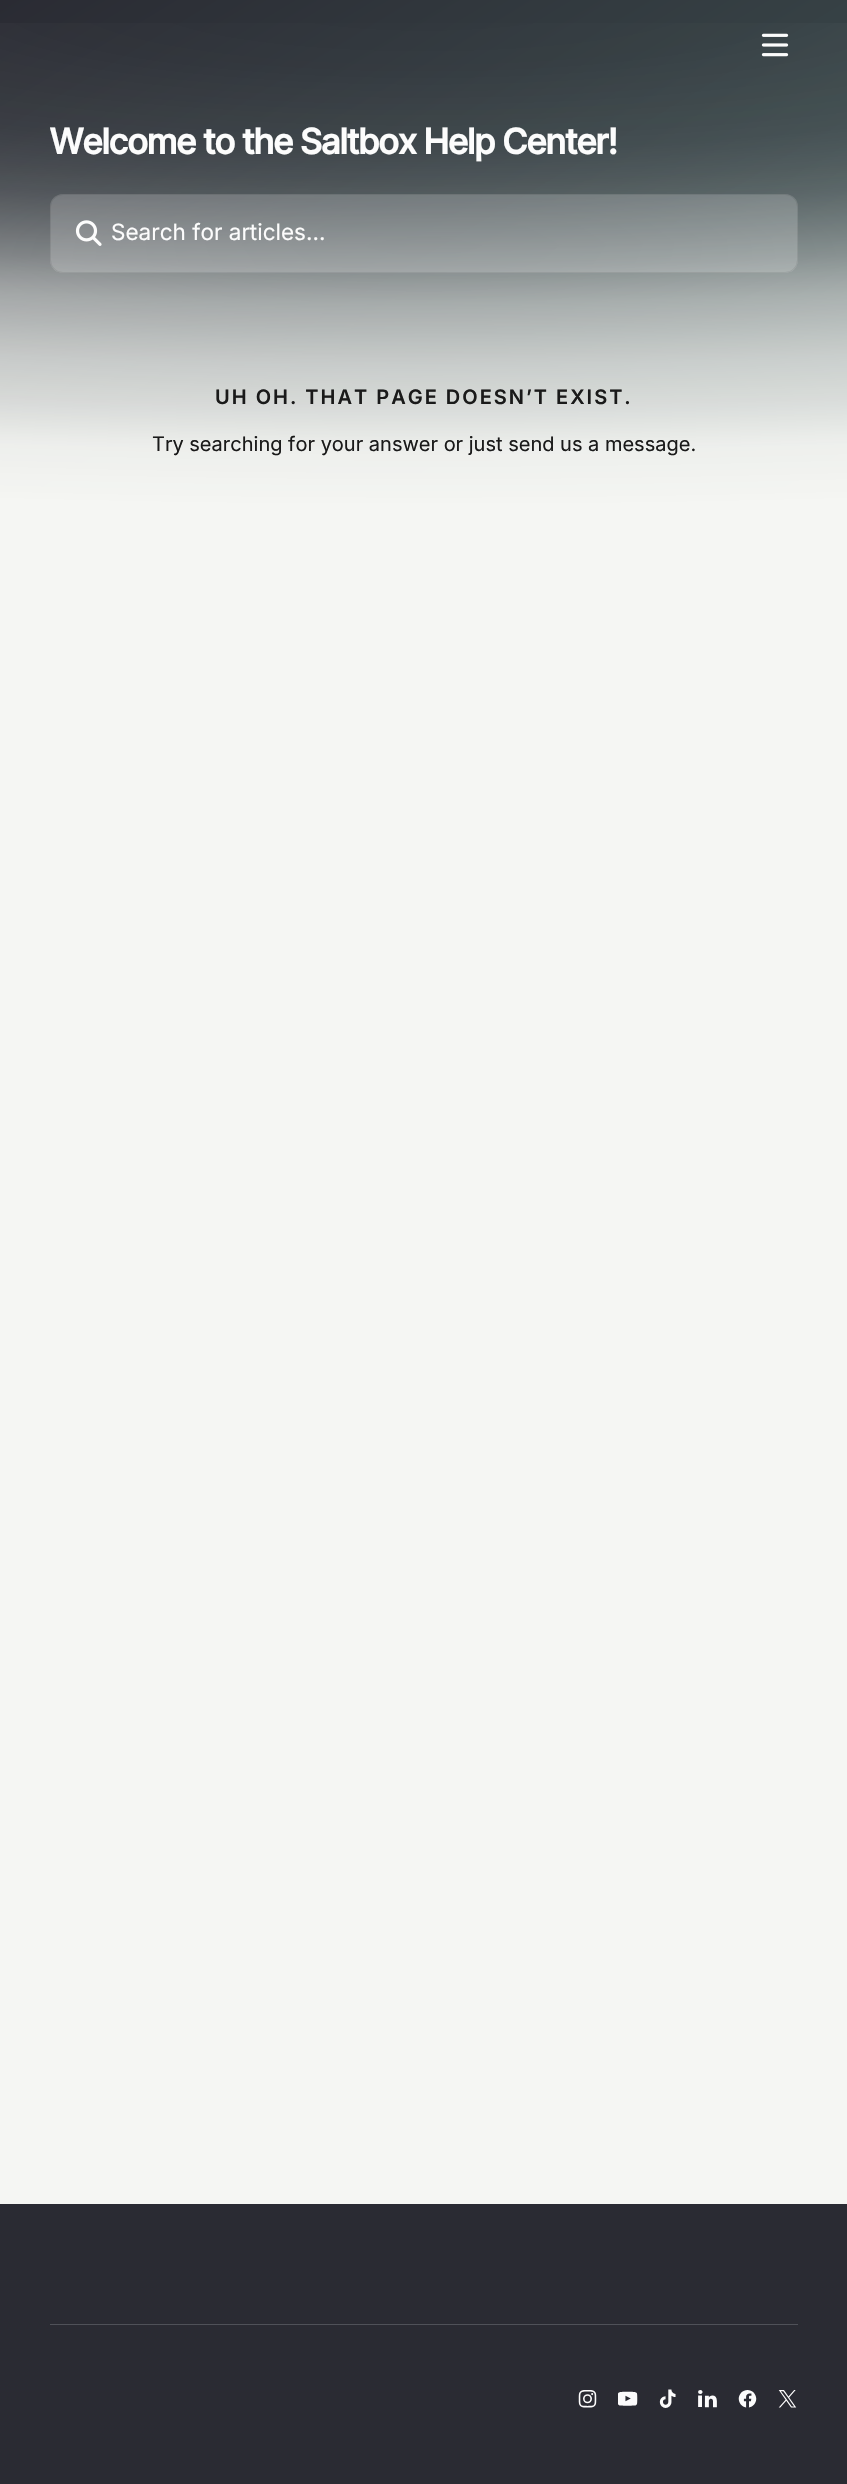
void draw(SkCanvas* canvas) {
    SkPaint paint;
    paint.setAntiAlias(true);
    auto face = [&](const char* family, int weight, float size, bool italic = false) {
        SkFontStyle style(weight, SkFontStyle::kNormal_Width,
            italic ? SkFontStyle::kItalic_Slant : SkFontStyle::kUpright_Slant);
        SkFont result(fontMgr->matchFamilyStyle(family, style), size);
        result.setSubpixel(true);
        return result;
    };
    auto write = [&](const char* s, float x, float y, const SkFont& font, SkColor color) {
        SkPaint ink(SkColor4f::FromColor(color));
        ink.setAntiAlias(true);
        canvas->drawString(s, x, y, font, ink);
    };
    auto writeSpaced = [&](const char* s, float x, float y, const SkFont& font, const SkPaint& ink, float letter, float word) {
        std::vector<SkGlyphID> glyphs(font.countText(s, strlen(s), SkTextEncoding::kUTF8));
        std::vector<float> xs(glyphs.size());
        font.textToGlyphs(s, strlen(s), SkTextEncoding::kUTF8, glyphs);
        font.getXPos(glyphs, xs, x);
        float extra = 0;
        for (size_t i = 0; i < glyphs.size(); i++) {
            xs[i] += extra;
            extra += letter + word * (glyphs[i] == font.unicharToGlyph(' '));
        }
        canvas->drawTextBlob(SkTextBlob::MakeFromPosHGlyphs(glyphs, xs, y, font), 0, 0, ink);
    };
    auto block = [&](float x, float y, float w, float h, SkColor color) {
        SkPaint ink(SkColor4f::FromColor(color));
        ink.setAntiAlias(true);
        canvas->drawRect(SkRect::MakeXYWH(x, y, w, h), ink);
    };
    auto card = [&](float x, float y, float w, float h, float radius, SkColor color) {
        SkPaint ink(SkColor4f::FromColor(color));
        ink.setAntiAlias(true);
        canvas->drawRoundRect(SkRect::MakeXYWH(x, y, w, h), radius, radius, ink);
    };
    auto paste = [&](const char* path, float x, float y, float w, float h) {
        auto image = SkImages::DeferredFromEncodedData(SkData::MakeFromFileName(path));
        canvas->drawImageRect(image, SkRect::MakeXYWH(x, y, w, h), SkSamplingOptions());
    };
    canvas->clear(SkColorSetRGB(245, 246, 243));
    {
        const SkColor colors[] = {SkColorSetRGB(42, 43, 51), SkColorSetRGB(66, 86, 86)};
        const float stops[] = {0, 1};
        const SkPoint ends[] = {{197, -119}, {651, 632}};
        paint.setShader(SkGradientShader::MakeLinear(ends, colors, stops, 2, SkTileMode::kClamp));
        paint.setAlpha(255);
    }
    canvas->drawRect(SkRect::MakeXYWH(0, 0, 847, 503), paint);
    {
        const SkColor colors[] = {SkColorSetARGB(0, 245, 246, 243), SkColorSetARGB(3, 245, 246, 243), SkColorSetARGB(10, 245, 246, 243), SkColorSetARGB(18, 245, 246, 243), SkColorSetARGB(31, 245, 246, 243), SkColorSetARGB(46, 245, 246, 243), SkColorSetARGB(64, 245, 246, 243), SkColorSetARGB(84, 245, 246, 243), SkColorSetARGB(105, 245, 246, 243), SkColorSetARGB(125, 245, 246, 243), SkColorSetARGB(148, 245, 246, 243), SkColorSetARGB(171, 245, 246, 243), SkColorSetARGB(194, 245, 246, 243), SkColorSetARGB(214, 245, 246, 243), SkColorSetARGB(245, 245, 246, 243), SkColorSetRGB(245, 246, 243)};
        const float stops[] = {0, 0.12f, 0.21f, 0.29f, 0.35f, 0.4f, 0.44f, 0.48f, 0.52f, 0.55f, 0.59f, 0.65f, 0.71f, 0.79f, 0.88f, 1};
        SkMatrix m = SkMatrix::Translate(424, 0).preScale(2825, 513);
        paint.setShader(SkGradientShader::MakeRadial({0, 0}, 1, colors, stops, 16, SkTileMode::kClamp, 0, &m));
        paint.setAlpha(255);
    }
    canvas->drawRect(SkRect::MakeXYWH(0, 23, 847, 480), paint);
    paste("pic1.png", 761, 33, 28, 24);
    auto kFont1 = face("Inter Tight", 700, 35);
    write("Welcome to the Saltbox Help Center!", 50, 154, kFont1, SkColorSetRGB(252, 252, 252));
    card(50, 194, 748, 79, 13, SkColorSetARGB(51, 255, 255, 255));
    paint.setStyle(SkPaint::kStroke_Style);
    paint.setStrokeWidth(1);
    paint.setShader(nullptr);
    paint.setColor(SkColorSetARGB(20, 0, 0, 0));
    canvas->drawRoundRect(SkRect::MakeXYWH(50.5f, 194.5f, 747, 78), 12.5f, 12.5f, paint);
    paste("pic2.png", 75, 220, 27, 26);
    auto kFont2 = face("Inter", 400, 22.5f);
    write("Search for articles...", 111, 240, kFont2, SkColorSetRGB(252, 252, 252));
    auto kFont3 = face("Inter", 600, 20);
    paint.setStyle(SkPaint::kFill_Style);
    paint.setColor(SkColorSetRGB(26, 26, 26));
    writeSpaced("UH OH. THAT PAGE DOESN’T EXIST.", 215, 404, kFont3, paint, 2, 0);
    auto kFont4 = face("Inter", 400, 20);
    write("Try searching for your answer or just send us a message.", 152, 451, kFont4, SkColorSetRGB(26, 26, 26));
    block(0, 2204, 847, 280, SkColorSetRGB(42, 43, 51));
    block(50, 2324, 748, 1, SkColorSetRGB(79, 81, 88));
    paste("pic3.png", 578, 2390, 19, 18);
    paste("pic4.png", 618, 2391, 20, 15);
    paste("pic5.png", 659, 2389, 17, 19);
    paste("pic6.png", 698, 2390, 19, 18);
    paste("pic7.png", 738, 2390, 19, 18);
    paste("pic8.png", 778, 2390, 19, 18);
}
